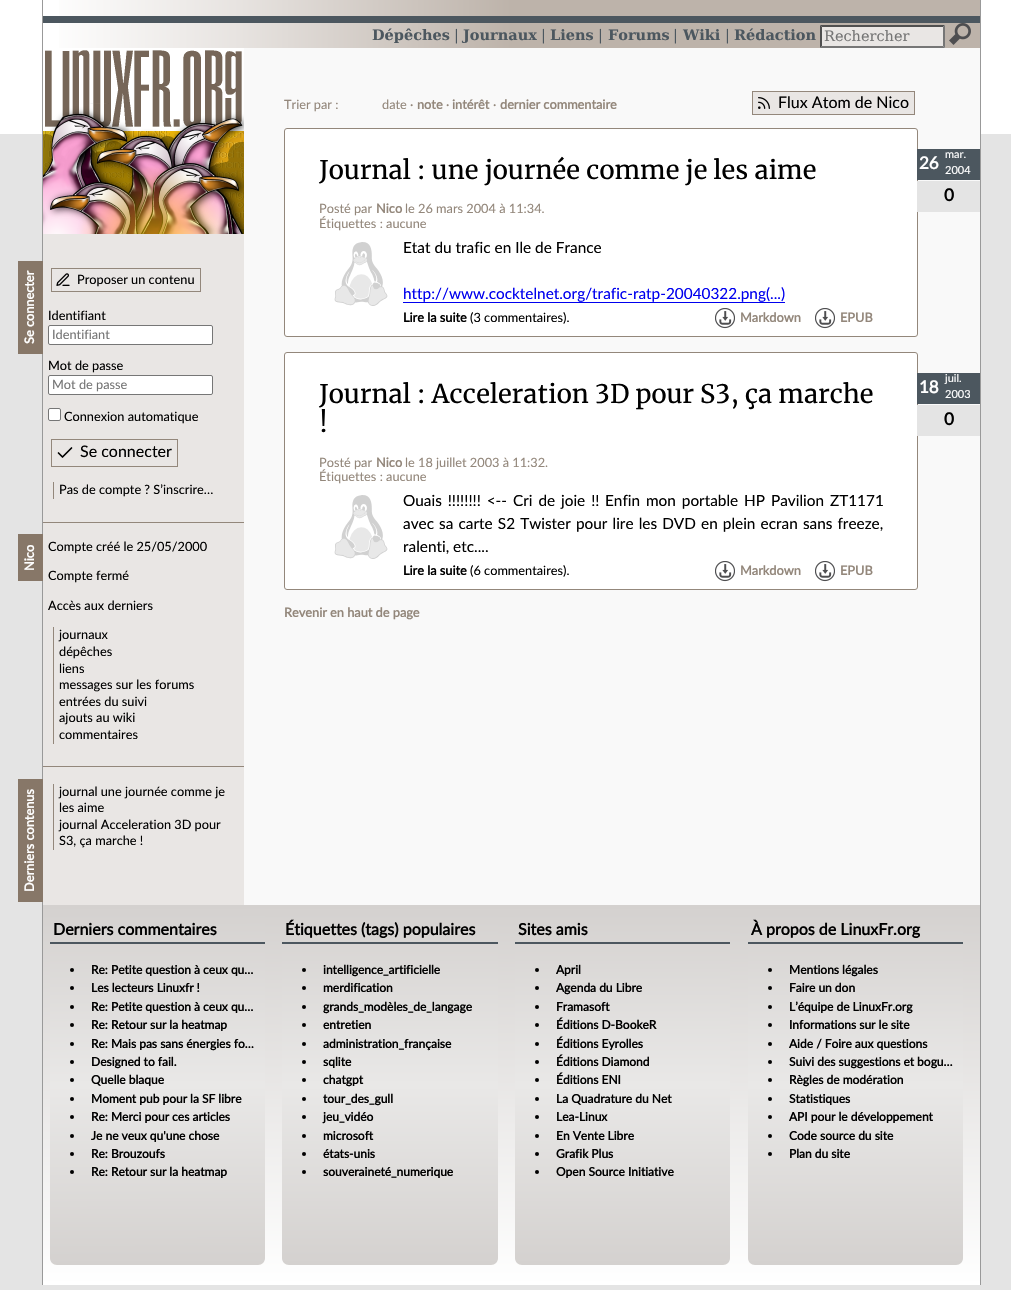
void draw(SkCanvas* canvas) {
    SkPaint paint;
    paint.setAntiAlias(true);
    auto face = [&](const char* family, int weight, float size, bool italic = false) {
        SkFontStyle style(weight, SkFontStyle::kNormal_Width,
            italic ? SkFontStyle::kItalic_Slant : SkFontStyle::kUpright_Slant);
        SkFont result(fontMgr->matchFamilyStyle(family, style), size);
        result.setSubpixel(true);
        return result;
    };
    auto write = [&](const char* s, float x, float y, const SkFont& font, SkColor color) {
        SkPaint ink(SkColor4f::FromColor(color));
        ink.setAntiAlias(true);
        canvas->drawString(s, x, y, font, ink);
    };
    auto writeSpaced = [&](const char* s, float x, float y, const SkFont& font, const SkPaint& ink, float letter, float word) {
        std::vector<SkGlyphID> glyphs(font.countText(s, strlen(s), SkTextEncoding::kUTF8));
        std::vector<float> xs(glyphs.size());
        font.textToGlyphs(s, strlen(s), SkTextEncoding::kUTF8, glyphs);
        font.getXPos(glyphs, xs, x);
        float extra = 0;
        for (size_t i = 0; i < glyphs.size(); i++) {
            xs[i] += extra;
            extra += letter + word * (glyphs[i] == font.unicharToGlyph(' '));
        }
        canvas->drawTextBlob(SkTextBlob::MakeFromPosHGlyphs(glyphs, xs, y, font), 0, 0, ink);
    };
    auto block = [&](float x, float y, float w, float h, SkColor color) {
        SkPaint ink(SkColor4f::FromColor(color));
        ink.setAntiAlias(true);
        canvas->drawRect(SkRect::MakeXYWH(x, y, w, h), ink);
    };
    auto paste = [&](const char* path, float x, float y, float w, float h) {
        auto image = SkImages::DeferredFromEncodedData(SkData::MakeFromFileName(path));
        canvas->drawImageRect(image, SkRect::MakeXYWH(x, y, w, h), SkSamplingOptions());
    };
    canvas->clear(SkColorSetRGB(228, 228, 228));
    block(0, 0, 1011, 134, SK_ColorWHITE);
    block(43, 234, 201, 671, SkColorSetRGB(233, 230, 228));
    block(244, 48, 736, 857, SkColorSetRGB(249, 249, 249));
    block(980, 0, 1, 1285, SkColorSetRGB(153, 153, 153));
    block(42, 0, 1, 1285, SkColorSetRGB(153, 153, 153));
    {
        const SkColor colors[] = {SK_ColorWHITE, SkColorSetRGB(231, 227, 224), SkColorSetRGB(189, 179, 170)};
        const float stops[] = {0, 0.21f, 0.5f};
        const SkPoint ends[] = {{43, 24}, {980, 24}};
        paint.setShader(SkGradientShader::MakeLinear(ends, colors, stops, 3, SkTileMode::kClamp));
        paint.setAlpha(255);
    }
    canvas->drawRect(SkRect::MakeXYWH(59, 0, 921, 48), paint);
    block(43, 16, 937, 7, SkColorSetRGB(76, 87, 95));
    auto kFont1 = face("DejaVu Serif", 700, 14.5f);
    write("Dépêches", 372, 40, kFont1, SkColorSetRGB(76, 87, 95));
    auto kFont2 = face("DejaVu Serif", 400, 14.5f);
    write("|", 454, 40, kFont2, SkColorSetRGB(76, 87, 95));
    write("Journaux", 463, 40, kFont1, SkColorSetRGB(76, 87, 95));
    write("|", 541, 40, kFont2, SkColorSetRGB(76, 87, 95));
    write("Liens", 550, 40, kFont1, SkColorSetRGB(76, 87, 95));
    write("|", 598, 40, kFont2, SkColorSetRGB(76, 87, 95));
    write("Forums", 608, 40, kFont1, SkColorSetRGB(76, 87, 95));
    write("|", 673, 40, kFont2, SkColorSetRGB(76, 87, 95));
    write("Wiki", 683, 40, kFont1, SkColorSetRGB(76, 87, 95));
    write("|", 725, 40, kFont2, SkColorSetRGB(76, 87, 95));
    write("Rédaction", 734, 40, kFont1, SkColorSetRGB(76, 87, 95));
    block(820, 25, 125, 23, SkColorSetRGB(233, 230, 228));
    paint.setShader(nullptr);
    paint.setColor(SkColorSetRGB(79, 79, 79));
    canvas->drawPath(SkPathBuilder().moveTo(820, 25).lineTo(945, 25).lineTo(943, 27).lineTo(822, 27).close().detach(), paint);
    paint.setColor(SkColorSetRGB(118, 118, 118));
    canvas->drawPath(SkPathBuilder().moveTo(945, 25).lineTo(945, 48).lineTo(943, 46).lineTo(943, 27).close().detach(), paint);
    canvas->drawPath(SkPathBuilder().moveTo(945, 48).lineTo(820, 48).lineTo(822, 46).lineTo(943, 46).close().detach(), paint);
    paint.setColor(SkColorSetRGB(79, 79, 79));
    canvas->drawPath(SkPathBuilder().moveTo(820, 48).lineTo(820, 25).lineTo(822, 27).lineTo(822, 46).close().detach(), paint);
    write("Rechercher", 824, 41, kFont2, SkColorSetRGB(117, 117, 117));
    paste("pic1.png", 949, 23, 22, 22);
    paste("pic2.png", 43, 48, 201, 186);
    block(43, 522, 201, 1, SkColorSetRGB(147, 135, 123));
    block(18, 261, 25, 93, SkColorSetRGB(135, 119, 104));
    auto kFont3 = face("Lato", 700, 12.75f);
    canvas->save();
    canvas->rotate(-90, 34, 344);
    write("Se connecter", 34, 344, kFont3, SK_ColorWHITE);
    canvas->restore();
    paste("pic3.png", 56, 273, 14, 13);
    paint.setStyle(SkPaint::kStroke_Style);
    paint.setStrokeWidth(1);
    paint.setColor(SkColorSetRGB(147, 135, 123));
    canvas->drawRect(SkRect::MakeXYWH(51.5f, 268.5f, 149, 23), paint);
    auto kFont4 = face("Lato", 400, 12.75f);
    write("Proposer un contenu", 77, 284, kFont4, SK_ColorBLACK);
    write("Identifiant", 48, 320, kFont4, SK_ColorBLACK);
    paint.setStyle(SkPaint::kFill_Style);
    paint.setColor(SK_ColorWHITE);
    canvas->drawRoundRect(SkRect::MakeXYWH(48.5f, 325.5f, 164, 19), 1.5f, 1.5f, paint);
    paint.setStyle(SkPaint::kStroke_Style);
    paint.setColor(SkColorSetRGB(118, 118, 118));
    canvas->drawRoundRect(SkRect::MakeXYWH(48.5f, 325.5f, 164, 19), 1.5f, 1.5f, paint);
    write("Identifiant", 52, 339, kFont4, SkColorSetRGB(117, 117, 117));
    write("Mot de passe", 48, 370, kFont4, SK_ColorBLACK);
    paint.setStyle(SkPaint::kFill_Style);
    paint.setColor(SK_ColorWHITE);
    canvas->drawRoundRect(SkRect::MakeXYWH(48.5f, 375.5f, 164, 19), 1.5f, 1.5f, paint);
    paint.setStyle(SkPaint::kStroke_Style);
    paint.setColor(SkColorSetRGB(118, 118, 118));
    canvas->drawRoundRect(SkRect::MakeXYWH(48.5f, 375.5f, 164, 19), 1.5f, 1.5f, paint);
    write("Mot de passe", 52, 389, kFont4, SkColorSetRGB(117, 117, 117));
    paint.setStyle(SkPaint::kFill_Style);
    paint.setColor(SK_ColorWHITE);
    canvas->drawRoundRect(SkRect::MakeXYWH(48.5f, 408.5f, 12, 12), 1.5f, 1.5f, paint);
    paint.setStyle(SkPaint::kStroke_Style);
    paint.setColor(SkColorSetRGB(118, 118, 118));
    canvas->drawRoundRect(SkRect::MakeXYWH(48.5f, 408.5f, 12, 12), 1.5f, 1.5f, paint);
    write("Connexion automatique", 64, 421, kFont4, SK_ColorBLACK);
    paint.setStrokeWidth(1.7f);
    paint.setStrokeCap(SkPaint::kRound_Cap);
    paint.setStrokeJoin(SkPaint::kRound_Join);
    paint.setColor(SK_ColorBLACK);
    canvas->drawPath(SkPathBuilder().moveTo(71.5f, 448).lineTo(62.5f, 457).lineTo(58.5f, 453).detach(), paint);
    paint.setStrokeWidth(1);
    paint.setStrokeCap(SkPaint::kButt_Cap);
    paint.setStrokeJoin(SkPaint::kMiter_Join);
    paint.setColor(SkColorSetRGB(147, 135, 123));
    canvas->drawRect(SkRect::MakeXYWH(51.5f, 439.5f, 126, 27), paint);
    auto kFont5 = face("Lato", 400, 16);
    write("Se connecter", 80, 457, kFont5, SK_ColorBLACK);
    block(53, 482, 1, 17, SkColorSetRGB(147, 135, 123));
    write("Pas de compte ? S’inscrire…", 59, 494, kFont4, SK_ColorBLACK);
    block(43, 766, 201, 1, SkColorSetRGB(147, 135, 123));
    block(18, 534, 25, 47, SkColorSetRGB(135, 119, 104));
    canvas->save();
    canvas->rotate(-90, 34, 571);
    write("Nico", 34, 571, kFont3, SK_ColorWHITE);
    canvas->restore();
    write("Compte créé le 25/05/2000", 48, 551, kFont4, SK_ColorBLACK);
    write("Compte fermé", 48, 580, kFont4, SK_ColorBLACK);
    write("Accès aux derniers", 48, 610, kFont4, SK_ColorBLACK);
    block(53, 627, 1, 117, SkColorSetRGB(147, 135, 123));
    write("journaux", 59, 639, kFont4, SK_ColorBLACK);
    write("dépêches", 59, 656, kFont4, SK_ColorBLACK);
    write("liens", 59, 673, kFont4, SK_ColorBLACK);
    write("messages sur les forums", 59, 689, kFont4, SK_ColorBLACK);
    write("entrées du suivi", 59, 706, kFont4, SK_ColorBLACK);
    write("ajouts au wiki", 59, 722, kFont4, SK_ColorBLACK);
    write("commentaires", 59, 739, kFont4, SK_ColorBLACK);
    block(18, 779, 25, 123, SkColorSetRGB(135, 119, 104));
    canvas->save();
    canvas->rotate(-90, 34, 892);
    write("Derniers contenus", 34, 892, kFont3, SK_ColorWHITE);
    canvas->restore();
    block(53, 784, 1, 66, SkColorSetRGB(147, 135, 123));
    write("journal une journée comme je", 59, 796, kFont4, SK_ColorBLACK);
    write("les aime", 59, 812, kFont4, SK_ColorBLACK);
    write("journal Acceleration 3D pour", 59, 829, kFont4, SK_ColorBLACK);
    write("S3, ça marche !", 59, 845, kFont4, SK_ColorBLACK);
    write("Trier par :", 284, 109, kFont4, SkColorSetRGB(147, 135, 123));
    write("date ·", 382, 109, kFont4, SkColorSetRGB(147, 135, 123));
    write("note", 417, 109, kFont3, SkColorSetRGB(147, 135, 123));
    write("·", 446, 109, kFont4, SkColorSetRGB(147, 135, 123));
    write("intérêt", 452, 109, kFont3, SkColorSetRGB(147, 135, 123));
    write("·", 493, 109, kFont4, SkColorSetRGB(147, 135, 123));
    write("dernier commentaire", 500, 109, kFont3, SkColorSetRGB(147, 135, 123));
    block(753, 92, 161, 22, SkColorSetRGB(233, 230, 228));
    paste("pic4.png", 758, 97, 12, 12);
    canvas->drawRect(SkRect::MakeXYWH(752.5f, 91.5f, 162, 23), paint);
    write("Flux Atom de Nico", 778, 108, kFont5, SK_ColorBLACK);
    paint.setStyle(SkPaint::kFill_Style);
    paint.setColor(SK_ColorWHITE);
    canvas->drawRoundRect(SkRect::MakeXYWH(284.5f, 128.5f, 633, 208), 2.5f, 2.5f, paint);
    paint.setStyle(SkPaint::kStroke_Style);
    paint.setColor(SkColorSetRGB(147, 135, 123));
    canvas->drawRoundRect(SkRect::MakeXYWH(284.5f, 128.5f, 633, 208), 2.5f, 2.5f, paint);
    auto kFont6 = face("Merriweather", 400, 25.6f);
    write("Journal : une journée comme je les aime", 319, 179, kFont6, SK_ColorBLACK);
    write("Posté par", 319, 213, kFont4, SkColorSetRGB(147, 135, 123));
    write("Nico", 376, 213, kFont3, SkColorSetRGB(147, 135, 123));
    write("le 26 mars 2004 à 11:34.", 405, 213, kFont4, SkColorSetRGB(147, 135, 123));
    write("Étiquettes : aucune", 319, 228, kFont4, SkColorSetRGB(147, 135, 123));
    block(917, 149, 63, 31, SkColorSetRGB(76, 87, 95));
    auto kFont7 = face("Lato", 700, 17);
    write("26", 919, 169, kFont7, SK_ColorWHITE);
    auto kFont8 = face("Lato", 400, 11);
    write("mar.", 945, 158, kFont8, SK_ColorWHITE);
    write("2004", 945, 174, kFont8, SK_ColorWHITE);
    block(917, 181, 63, 31, SkColorSetRGB(228, 228, 228));
    write("0", 944, 201, kFont7, SK_ColorBLACK);
    paste("pic5.png", 334, 242, 54, 64);
    auto kFont9 = face("Lato", 400, 15.35f);
    write("Etat du trafic en Ile de France", 403, 253, kFont9, SK_ColorBLACK);
    write("http://www.cocktelnet.org/trafic-ratp-20040322.png(...)", 403, 299, kFont9, SkColorSetRGB(0, 0, 238));
    block(403, 302, 382, 1, SkColorSetRGB(0, 0, 238));
    write("Lire la suite", 403, 322, kFont3, SK_ColorBLACK);
    write("(3 commentaires).", 470, 322, kFont4, SK_ColorBLACK);
    paste("pic6.png", 715, 308, 20, 21);
    write("Markdown", 740, 322, kFont3, SkColorSetRGB(147, 135, 123));
    paste("pic6.png", 815, 308, 20, 21);
    write("EPUB", 840, 322, kFont3, SkColorSetRGB(147, 135, 123));
    paint.setStyle(SkPaint::kFill_Style);
    paint.setColor(SK_ColorWHITE);
    canvas->drawRoundRect(SkRect::MakeXYWH(284.5f, 352.5f, 633, 237), 2.5f, 2.5f, paint);
    paint.setStyle(SkPaint::kStroke_Style);
    paint.setColor(SkColorSetRGB(147, 135, 123));
    canvas->drawRoundRect(SkRect::MakeXYWH(284.5f, 352.5f, 633, 237), 2.5f, 2.5f, paint);
    write("Journal : Acceleration 3D pour S3, ça marche", 319, 403, kFont6, SK_ColorBLACK);
    write("!", 319, 432, kFont6, SK_ColorBLACK);
    write("Posté par", 319, 467, kFont4, SkColorSetRGB(147, 135, 123));
    write("Nico", 376, 467, kFont3, SkColorSetRGB(147, 135, 123));
    write("le 18 juillet 2003 à 11:32.", 405, 467, kFont4, SkColorSetRGB(147, 135, 123));
    write("Étiquettes : aucune", 319, 481, kFont4, SkColorSetRGB(147, 135, 123));
    block(917, 373, 63, 31, SkColorSetRGB(76, 87, 95));
    write("juil.", 945, 382, kFont8, SK_ColorWHITE);
    write("18", 919, 393, kFont7, SK_ColorWHITE);
    write("2003", 945, 398, kFont8, SK_ColorWHITE);
    block(917, 405, 63, 31, SkColorSetRGB(228, 228, 228));
    write("0", 944, 425, kFont7, SK_ColorBLACK);
    paste("pic7.png", 334, 495, 54, 64);
    paint.setStyle(SkPaint::kFill_Style);
    paint.setColor(SK_ColorBLACK);
    writeSpaced("Ouais !!!!!!!! <-- Cri de joie !!", 403, 506, kFont9, paint, 0, 2);
    writeSpaced("Enfin mon portable HP Pavilion ZT1171", 605, 506, kFont9, paint, 0, 2);
    writeSpaced("avec sa carte S2 Twister pour lire les DVD en plein ecran sans freeze,", 403, 529, kFont9, paint, 0, 1.2f);
    write("ralenti, etc....", 403, 552, kFont9, SK_ColorBLACK);
    write("Lire la suite", 403, 575, kFont3, SK_ColorBLACK);
    write("(6 commentaires).", 470, 575, kFont4, SK_ColorBLACK);
    paste("pic6.png", 715, 561, 20, 21);
    write("Markdown", 740, 575, kFont3, SkColorSetRGB(147, 135, 123));
    paste("pic6.png", 815, 561, 20, 21);
    write("EPUB", 840, 575, kFont3, SkColorSetRGB(147, 135, 123));
    write("Revenir en haut de page", 284, 617, kFont3, SkColorSetRGB(147, 135, 123));
    {
        const SkColor colors[] = {SkColorSetRGB(212, 209, 207), SK_ColorWHITE};
        const float stops[] = {0, 1};
        const SkPoint ends[] = {{512, 905}, {512, 1285}};
        paint.setShader(SkGradientShader::MakeLinear(ends, colors, stops, 2, SkTileMode::kClamp));
        paint.setAlpha(255);
    }
    canvas->drawRect(SkRect::MakeXYWH(43, 905, 937, 380), paint);
    {
        const SkColor colors[] = {SkColorSetRGB(212, 209, 207), SkColorSetRGB(233, 232, 231), SkColorSetRGB(212, 209, 207)};
        const float stops[] = {0, 0.5f, 1};
        const SkPoint ends[] = {{157, 905}, {158, 1265}};
        paint.setShader(SkGradientShader::MakeLinear(ends, colors, stops, 3, SkTileMode::kClamp));
        paint.setAlpha(255);
    }
    canvas->drawPath(SkPathBuilder().moveTo(50, 905).lineTo(265, 905).lineTo(265, 1258).cubicTo(265, 1262, 262, 1265, 258, 1265).lineTo(57, 1265).cubicTo(53, 1265, 50, 1262, 50, 1258).close().detach(), paint);
    block(50, 942, 215, 2, SkColorSetRGB(76, 87, 95));
    auto kFont10 = face("Lato", 700, 16);
    write("Derniers commentaires", 53, 935, kFont10, SK_ColorBLACK);
    paint.setShader(nullptr);
    paint.setColor(SK_ColorBLACK);
    canvas->drawCircle(72, 970, 2, paint);
    auto kFont11 = face("Lato", 700, 12);
    write("Re: Petite question à ceux qu…", 91, 974, kFont11, SK_ColorBLACK);
    canvas->drawCircle(72, 988, 2, paint);
    write("Les lecteurs Linuxfr !", 91, 992, kFont11, SK_ColorBLACK);
    canvas->drawCircle(72, 1007, 2, paint);
    write("Re: Petite question à ceux qu…", 91, 1011, kFont11, SK_ColorBLACK);
    canvas->drawCircle(72, 1025, 2, paint);
    write("Re: Retour sur la heatmap", 91, 1029, kFont11, SK_ColorBLACK);
    canvas->drawCircle(72, 1044, 2, paint);
    write("Re: Mais pas sans énergies fo…", 91, 1048, kFont11, SK_ColorBLACK);
    canvas->drawCircle(72, 1062, 2, paint);
    write("Designed to fail.", 91, 1066, kFont11, SK_ColorBLACK);
    canvas->drawCircle(72, 1080, 2, paint);
    write("Quelle blaque", 91, 1084, kFont11, SK_ColorBLACK);
    canvas->drawCircle(72, 1099, 2, paint);
    write("Moment pub pour la SF libre", 91, 1103, kFont11, SK_ColorBLACK);
    canvas->drawCircle(72, 1117, 2, paint);
    write("Re: Merci pour ces articles", 91, 1121, kFont11, SK_ColorBLACK);
    canvas->drawCircle(72, 1136, 2, paint);
    write("Je ne veux qu'une chose", 91, 1140, kFont11, SK_ColorBLACK);
    canvas->drawCircle(72, 1154, 2, paint);
    write("Re: Brouzoufs", 91, 1158, kFont11, SK_ColorBLACK);
    canvas->drawCircle(72, 1172, 2, paint);
    write("Re: Retour sur la heatmap", 91, 1176, kFont11, SK_ColorBLACK);
    {
        const SkColor colors[] = {SkColorSetRGB(212, 209, 207), SkColorSetRGB(233, 232, 231), SkColorSetRGB(212, 209, 207)};
        const float stops[] = {0, 0.5f, 1};
        const SkPoint ends[] = {{390, 905}, {390, 1265}};
        paint.setShader(SkGradientShader::MakeLinear(ends, colors, stops, 3, SkTileMode::kClamp));
        paint.setAlpha(255);
    }
    canvas->drawPath(SkPathBuilder().moveTo(282, 905).lineTo(498, 905).lineTo(498, 1258).cubicTo(498, 1262, 495, 1265, 491, 1265).lineTo(289, 1265).cubicTo(285, 1265, 282, 1262, 282, 1258).close().detach(), paint);
    block(282, 942, 216, 2, SkColorSetRGB(76, 87, 95));
    write("Étiquettes (tags) populaires", 285, 935, kFont10, SK_ColorBLACK);
    paint.setShader(nullptr);
    paint.setColor(SK_ColorBLACK);
    canvas->drawCircle(304, 970, 2, paint);
    write("intelligence_artificielle", 323, 974, kFont11, SK_ColorBLACK);
    canvas->drawCircle(304, 988, 2, paint);
    write("merdification", 323, 992, kFont11, SK_ColorBLACK);
    canvas->drawCircle(304, 1007, 2, paint);
    write("grands_modèles_de_langage", 323, 1011, kFont11, SK_ColorBLACK);
    canvas->drawCircle(304, 1025, 2, paint);
    write("entretien", 323, 1029, kFont11, SK_ColorBLACK);
    canvas->drawCircle(304, 1044, 2, paint);
    write("administration_française", 323, 1048, kFont11, SK_ColorBLACK);
    canvas->drawCircle(304, 1062, 2, paint);
    write("sqlite", 323, 1066, kFont11, SK_ColorBLACK);
    canvas->drawCircle(304, 1080, 2, paint);
    write("chatgpt", 323, 1084, kFont11, SK_ColorBLACK);
    canvas->drawCircle(304, 1099, 2, paint);
    write("tour_des_gull", 323, 1103, kFont11, SK_ColorBLACK);
    canvas->drawCircle(304, 1117, 2, paint);
    write("jeu_vidéo", 323, 1121, kFont11, SK_ColorBLACK);
    canvas->drawCircle(304, 1136, 2, paint);
    write("microsoft", 323, 1140, kFont11, SK_ColorBLACK);
    canvas->drawCircle(304, 1154, 2, paint);
    write("états-unis", 323, 1158, kFont11, SK_ColorBLACK);
    canvas->drawCircle(304, 1172, 2, paint);
    write("souveraineté_numerique", 323, 1176, kFont11, SK_ColorBLACK);
    {
        const SkColor colors[] = {SkColorSetRGB(212, 209, 207), SkColorSetRGB(233, 232, 231), SkColorSetRGB(212, 209, 207)};
        const float stops[] = {0, 0.5f, 1};
        const SkPoint ends[] = {{623, 905}, {623, 1265}};
        paint.setShader(SkGradientShader::MakeLinear(ends, colors, stops, 3, SkTileMode::kClamp));
        paint.setAlpha(255);
    }
    canvas->drawPath(SkPathBuilder().moveTo(515, 905).lineTo(730, 905).lineTo(730, 1258).cubicTo(730, 1262, 727, 1265, 723, 1265).lineTo(522, 1265).cubicTo(518, 1265, 515, 1262, 515, 1258).close().detach(), paint);
    block(515, 942, 215, 2, SkColorSetRGB(76, 87, 95));
    write("Sites amis", 518, 935, kFont10, SK_ColorBLACK);
    paint.setShader(nullptr);
    paint.setColor(SK_ColorBLACK);
    canvas->drawCircle(537, 970, 2, paint);
    write("April", 556, 974, kFont11, SK_ColorBLACK);
    canvas->drawCircle(537, 988, 2, paint);
    write("Agenda du Libre", 556, 992, kFont11, SK_ColorBLACK);
    canvas->drawCircle(537, 1007, 2, paint);
    write("Framasoft", 556, 1011, kFont11, SK_ColorBLACK);
    canvas->drawCircle(537, 1025, 2, paint);
    write("Éditions D-BookeR", 556, 1029, kFont11, SK_ColorBLACK);
    canvas->drawCircle(537, 1044, 2, paint);
    write("Éditions Eyrolles", 556, 1048, kFont11, SK_ColorBLACK);
    canvas->drawCircle(537, 1062, 2, paint);
    write("Éditions Diamond", 556, 1066, kFont11, SK_ColorBLACK);
    canvas->drawCircle(537, 1080, 2, paint);
    write("Éditions ENI", 556, 1084, kFont11, SK_ColorBLACK);
    canvas->drawCircle(537, 1099, 2, paint);
    write("La Quadrature du Net", 556, 1103, kFont11, SK_ColorBLACK);
    canvas->drawCircle(537, 1117, 2, paint);
    write("Lea-Linux", 556, 1121, kFont11, SK_ColorBLACK);
    canvas->drawCircle(537, 1136, 2, paint);
    write("En Vente Libre", 556, 1140, kFont11, SK_ColorBLACK);
    canvas->drawCircle(537, 1154, 2, paint);
    write("Grafik Plus", 556, 1158, kFont11, SK_ColorBLACK);
    canvas->drawCircle(537, 1172, 2, paint);
    write("Open Source Initiative", 556, 1176, kFont11, SK_ColorBLACK);
    {
        const SkColor colors[] = {SkColorSetRGB(212, 209, 207), SkColorSetRGB(233, 232, 231), SkColorSetRGB(212, 209, 207)};
        const float stops[] = {0, 0.5f, 1};
        const SkPoint ends[] = {{856, 905}, {856, 1265}};
        paint.setShader(SkGradientShader::MakeLinear(ends, colors, stops, 3, SkTileMode::kClamp));
        paint.setAlpha(255);
    }
    canvas->drawPath(SkPathBuilder().moveTo(748, 905).lineTo(963, 905).lineTo(963, 1258).cubicTo(963, 1262, 960, 1265, 956, 1265).lineTo(755, 1265).cubicTo(751, 1265, 748, 1262, 748, 1258).close().detach(), paint);
    block(748, 942, 215, 2, SkColorSetRGB(76, 87, 95));
    write("À propos de LinuxFr.org", 751, 935, kFont10, SK_ColorBLACK);
    paint.setShader(nullptr);
    paint.setColor(SK_ColorBLACK);
    canvas->drawCircle(770, 970, 2, paint);
    write("Mentions légales", 789, 974, kFont11, SK_ColorBLACK);
    canvas->drawCircle(770, 988, 2, paint);
    write("Faire un don", 789, 992, kFont11, SK_ColorBLACK);
    canvas->drawCircle(770, 1007, 2, paint);
    write("L’équipe de LinuxFr.org", 789, 1011, kFont11, SK_ColorBLACK);
    canvas->drawCircle(770, 1025, 2, paint);
    write("Informations sur le site", 789, 1029, kFont11, SK_ColorBLACK);
    canvas->drawCircle(770, 1044, 2, paint);
    write("Aide / Foire aux questions", 789, 1048, kFont11, SK_ColorBLACK);
    canvas->drawCircle(770, 1062, 2, paint);
    write("Suivi des suggestions et bogu…", 789, 1066, kFont11, SK_ColorBLACK);
    canvas->drawCircle(770, 1080, 2, paint);
    write("Règles de modération", 789, 1084, kFont11, SK_ColorBLACK);
    canvas->drawCircle(770, 1099, 2, paint);
    write("Statistiques", 789, 1103, kFont11, SK_ColorBLACK);
    canvas->drawCircle(770, 1117, 2, paint);
    write("API pour le développement", 789, 1121, kFont11, SK_ColorBLACK);
    canvas->drawCircle(770, 1136, 2, paint);
    write("Code source du site", 789, 1140, kFont11, SK_ColorBLACK);
    canvas->drawCircle(770, 1154, 2, paint);
    write("Plan du site", 789, 1158, kFont11, SK_ColorBLACK);
}
